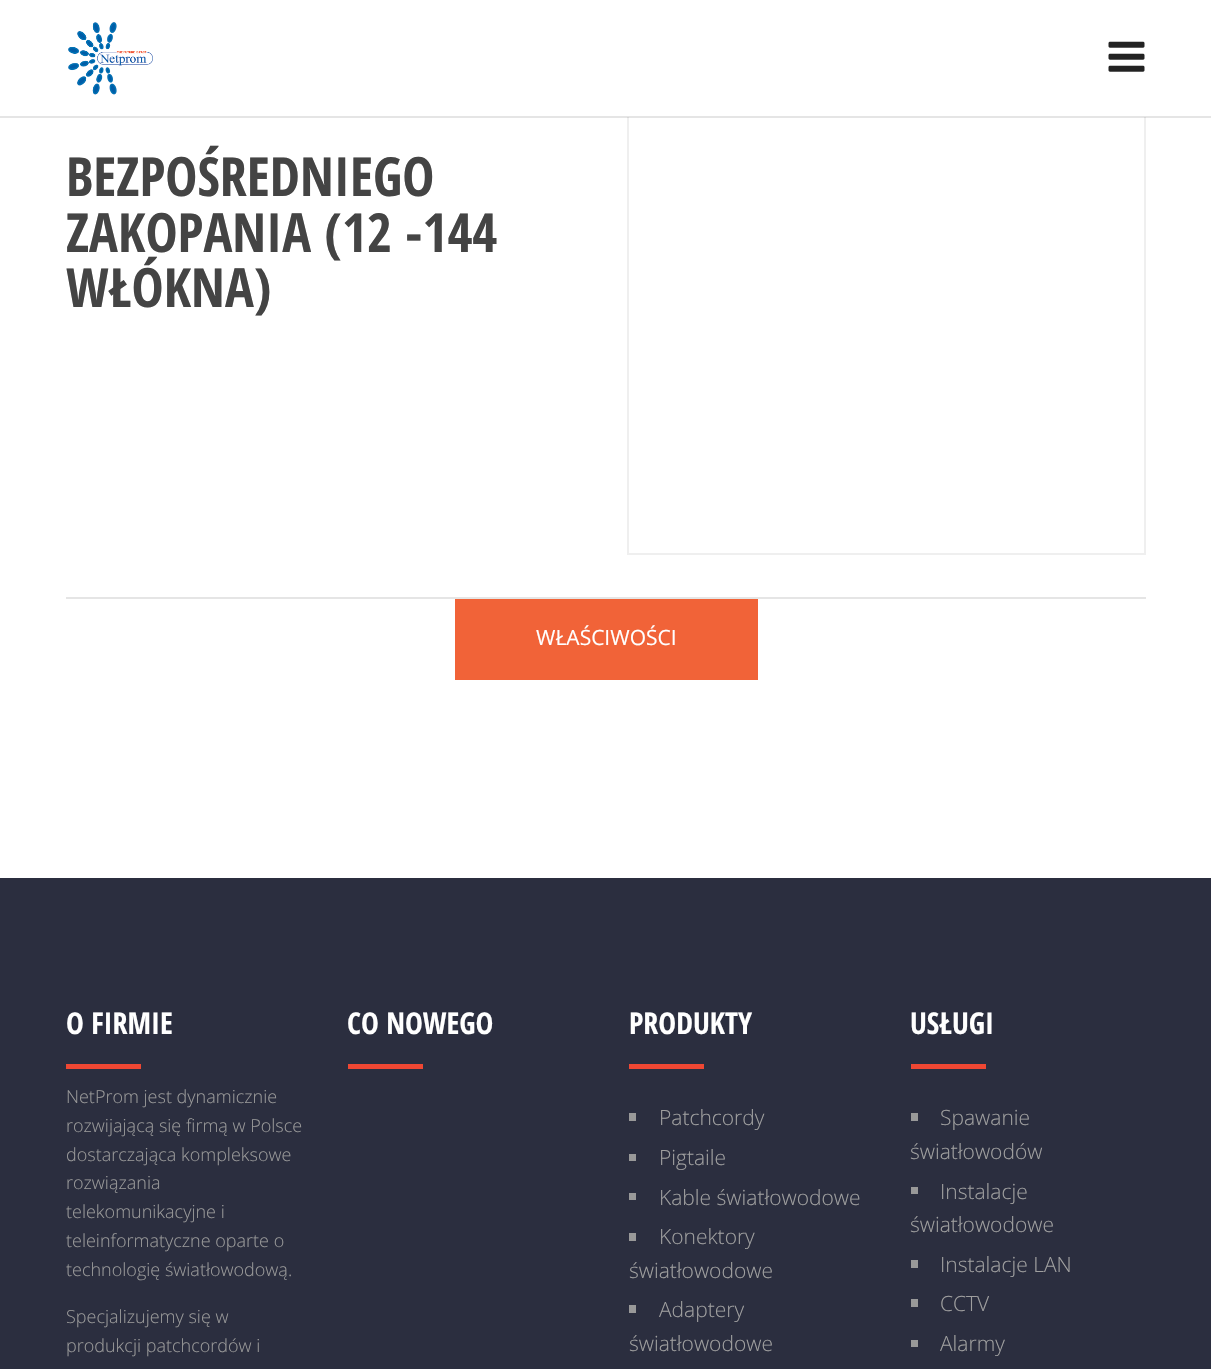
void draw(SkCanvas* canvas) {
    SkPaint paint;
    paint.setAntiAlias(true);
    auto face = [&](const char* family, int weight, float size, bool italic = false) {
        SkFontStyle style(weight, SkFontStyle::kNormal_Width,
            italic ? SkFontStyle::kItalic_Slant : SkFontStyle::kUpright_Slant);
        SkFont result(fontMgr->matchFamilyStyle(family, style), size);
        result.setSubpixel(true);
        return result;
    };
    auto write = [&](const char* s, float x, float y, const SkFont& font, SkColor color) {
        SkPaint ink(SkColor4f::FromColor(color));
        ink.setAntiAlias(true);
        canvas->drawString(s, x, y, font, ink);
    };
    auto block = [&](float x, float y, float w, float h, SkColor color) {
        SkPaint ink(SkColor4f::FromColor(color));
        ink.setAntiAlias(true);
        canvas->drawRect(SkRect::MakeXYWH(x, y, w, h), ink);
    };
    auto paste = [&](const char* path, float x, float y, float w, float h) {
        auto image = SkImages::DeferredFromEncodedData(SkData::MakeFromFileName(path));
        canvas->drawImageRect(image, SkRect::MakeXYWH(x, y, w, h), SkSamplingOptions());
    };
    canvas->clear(SK_ColorWHITE);
    paint.setStyle(SkPaint::kStroke_Style);
    paint.setStrokeWidth(2);
    paint.setColor(SkColorSetRGB(239, 239, 239));
    canvas->drawRect(SkRect::MakeXYWH(628, 39, 517, 515), paint);
    block(627, 38, 519, 79, SK_ColorWHITE);
    block(0, 116, 1211, 2, SkColorSetARGB(26, 0, 0, 0));
    paste("pic1.png", 68, 22, 85, 73);
    paste("pic2.png", 1108, 41, 37, 31);
    auto kFont1 = face("Open Sans Condensed", 700, 54);
    write("BEZPOŚREDNIEGO", 66, 196, kFont1, SkColorSetRGB(68, 68, 68));
    write("ZAKOPANIA (12 -144", 66, 252, kFont1, SkColorSetRGB(68, 68, 68));
    write("WŁÓKNA)", 66, 307, kFont1, SkColorSetRGB(68, 68, 68));
    block(66, 597, 1080, 2, SkColorSetRGB(229, 229, 229));
    block(455, 599, 303, 81, SkColorSetRGB(241, 99, 56));
    auto kFont2 = face("Open Sans", 400, 21);
    write("WŁAŚCIWOŚCI", 536, 645, kFont2, SK_ColorWHITE);
    block(0, 878, 1211, 491, SkColorSetRGB(43, 46, 63));
    auto kFont3 = face("Open Sans Condensed", 700, 30);
    write("O FIRMIE", 66, 1034, kFont3, SK_ColorWHITE);
    block(66, 1064, 75, 5, SkColorSetRGB(239, 71, 51));
    auto kFont4 = face("Open Sans", 300, 18);
    write("NetProm jest dynamicznie", 66, 1103, kFont4, SkColorSetRGB(153, 153, 153));
    write("rozwijającą się firmą w Polsce", 66, 1132, kFont4, SkColorSetRGB(153, 153, 153));
    write("dostarczająca kompleksowe", 66, 1161, kFont4, SkColorSetRGB(153, 153, 153));
    write("rozwiązania", 66, 1189, kFont4, SkColorSetRGB(153, 153, 153));
    write("telekomunikacyjne i", 66, 1218, kFont4, SkColorSetRGB(153, 153, 153));
    write("teleinformatyczne oparte o", 66, 1247, kFont4, SkColorSetRGB(153, 153, 153));
    write("technologię światłowodową.", 66, 1276, kFont4, SkColorSetRGB(153, 153, 153));
    write("Specjalizujemy się w", 66, 1323, kFont4, SkColorSetRGB(153, 153, 153));
    write("produkcji patchcordów i", 66, 1352, kFont4, SkColorSetRGB(153, 153, 153));
    write("CO NOWEGO", 347, 1034, kFont3, SK_ColorWHITE);
    block(348, 1064, 75, 5, SkColorSetRGB(239, 71, 51));
    write("PRODUKTY", 629, 1034, kFont3, SK_ColorWHITE);
    block(629, 1064, 75, 5, SkColorSetRGB(239, 71, 51));
    block(629, 1113, 7, 8, SkColorSetRGB(153, 153, 153));
    auto kFont5 = face("Open Sans", 300, 21);
    write("Patchcordy", 659, 1125, kFont5, SkColorSetRGB(159, 159, 159));
    block(629, 1154, 7, 7, SkColorSetRGB(153, 153, 153));
    write("Pigtaile", 659, 1165, kFont5, SkColorSetRGB(159, 159, 159));
    block(629, 1193, 7, 7, SkColorSetRGB(153, 153, 153));
    write("Kable światłowodowe", 659, 1205, kFont5, SkColorSetRGB(159, 159, 159));
    block(629, 1233, 7, 8, SkColorSetRGB(153, 153, 153));
    write("Konektory", 659, 1244, kFont5, SkColorSetRGB(159, 159, 159));
    write("światłowodowe", 629, 1278, kFont5, SkColorSetRGB(159, 159, 159));
    block(629, 1305, 7, 8, SkColorSetRGB(153, 153, 153));
    write("Adaptery", 659, 1317, kFont5, SkColorSetRGB(159, 159, 159));
    write("światłowodowe", 629, 1351, kFont5, SkColorSetRGB(159, 159, 159));
    write("USŁUGI", 910, 1034, kFont3, SK_ColorWHITE);
    block(911, 1064, 75, 5, SkColorSetRGB(239, 71, 51));
    block(911, 1113, 7, 8, SkColorSetRGB(153, 153, 153));
    write("Spawanie", 940, 1125, kFont5, SkColorSetRGB(159, 159, 159));
    write("światłowodów", 910, 1159, kFont5, SkColorSetRGB(159, 159, 159));
    block(911, 1187, 7, 7, SkColorSetRGB(153, 153, 153));
    write("Instalacje", 940, 1199, kFont5, SkColorSetRGB(159, 159, 159));
    write("światłowodowe", 910, 1232, kFont5, SkColorSetRGB(159, 159, 159));
    block(911, 1260, 7, 8, SkColorSetRGB(153, 153, 153));
    write("Instalacje LAN", 940, 1272, kFont5, SkColorSetRGB(159, 159, 159));
    block(911, 1299, 7, 8, SkColorSetRGB(153, 153, 153));
    write("CCTV", 940, 1311, kFont5, SkColorSetRGB(159, 159, 159));
    block(911, 1340, 7, 7, SkColorSetRGB(153, 153, 153));
    write("Alarmy", 940, 1351, kFont5, SkColorSetRGB(159, 159, 159));
}
